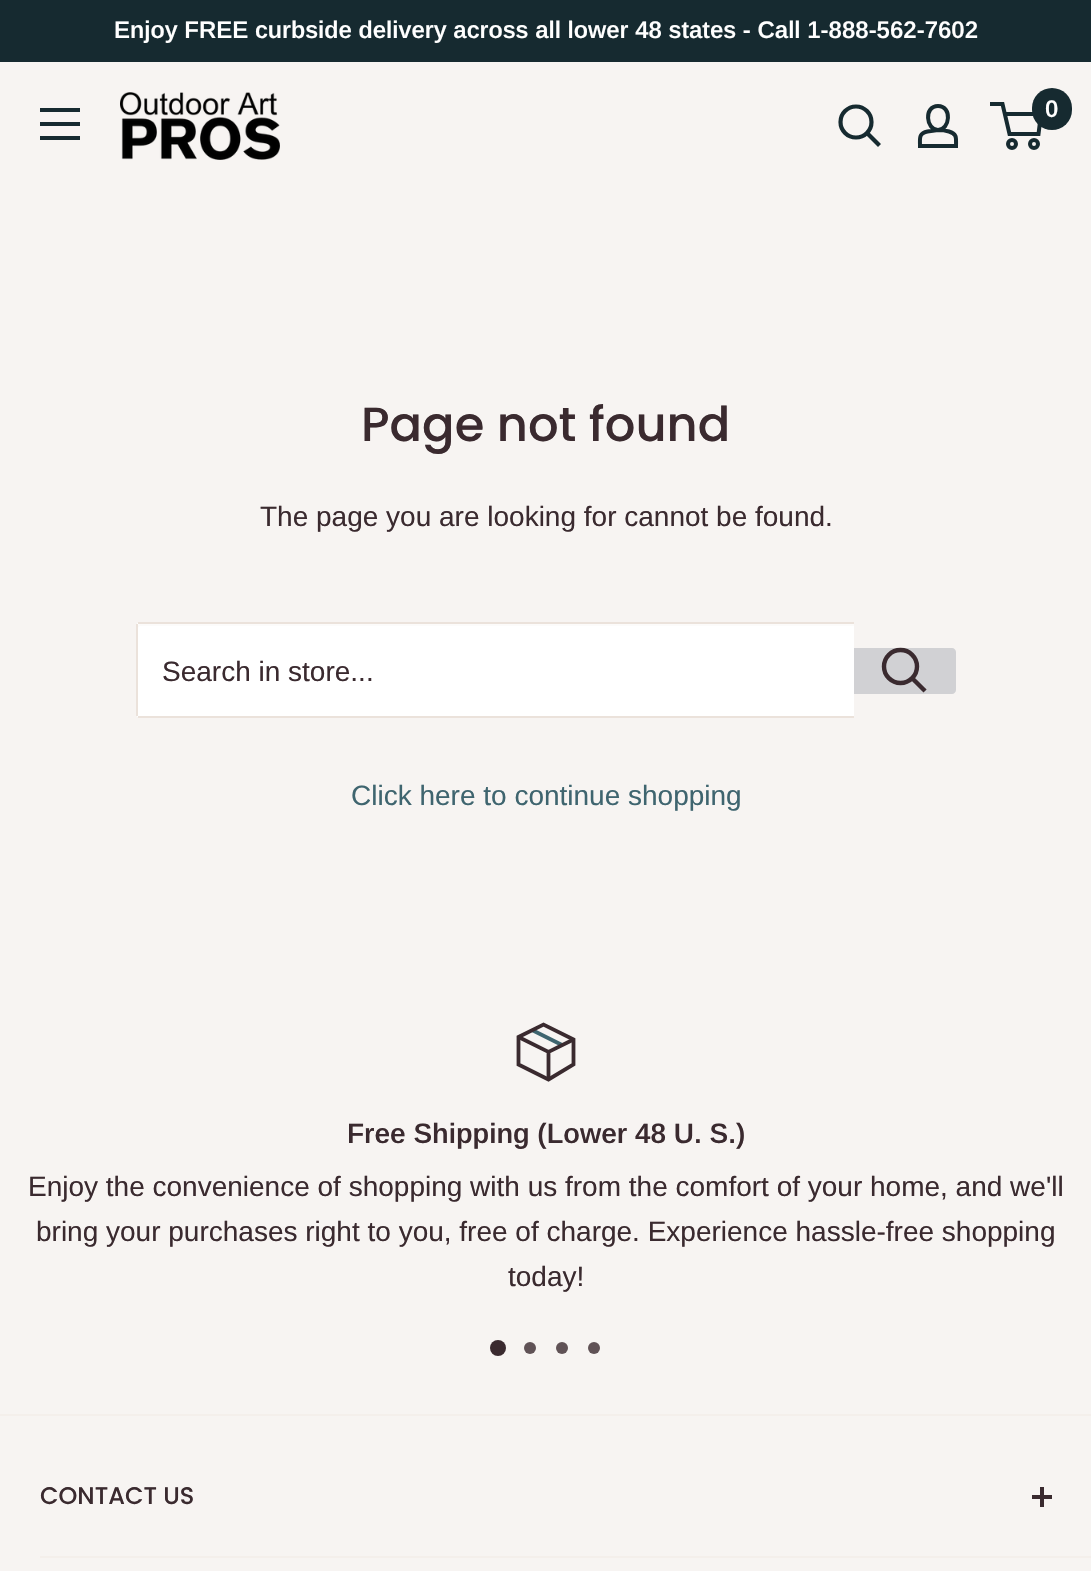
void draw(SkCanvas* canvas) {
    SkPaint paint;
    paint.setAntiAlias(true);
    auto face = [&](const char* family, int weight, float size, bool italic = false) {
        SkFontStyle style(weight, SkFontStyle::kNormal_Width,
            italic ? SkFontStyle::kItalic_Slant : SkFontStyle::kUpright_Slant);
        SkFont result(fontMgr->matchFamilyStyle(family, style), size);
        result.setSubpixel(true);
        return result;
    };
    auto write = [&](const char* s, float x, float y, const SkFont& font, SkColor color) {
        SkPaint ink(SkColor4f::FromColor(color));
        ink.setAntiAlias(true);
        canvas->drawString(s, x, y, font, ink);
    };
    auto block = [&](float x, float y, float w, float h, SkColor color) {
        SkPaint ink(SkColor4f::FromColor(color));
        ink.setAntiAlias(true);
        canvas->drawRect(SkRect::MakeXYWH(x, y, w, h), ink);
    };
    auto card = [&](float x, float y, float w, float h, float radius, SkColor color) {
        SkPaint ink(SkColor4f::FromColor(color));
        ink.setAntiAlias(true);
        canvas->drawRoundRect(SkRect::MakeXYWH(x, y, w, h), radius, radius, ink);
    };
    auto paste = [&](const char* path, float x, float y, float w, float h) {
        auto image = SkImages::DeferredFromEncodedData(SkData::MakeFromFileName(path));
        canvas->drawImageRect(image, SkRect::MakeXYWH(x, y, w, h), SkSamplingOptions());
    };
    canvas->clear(SkColorSetRGB(247, 244, 242));
    block(0, 0, 1091, 62, SkColorSetRGB(22, 42, 48));
    auto kFont1 = face("Arimo", 600, 24);
    write("Enjoy FREE curbside delivery across all lower 48 states - Call 1-888-562-7602", 114, 38, kFont1, SK_ColorWHITE);
    paint.setColor(SkColorSetRGB(22, 42, 48));
    canvas->drawPath(SkPathBuilder(SkPathFillType::kEvenOdd).moveTo(40, 136).lineTo(80, 136).lineTo(80, 140).lineTo(40, 140).close().moveTo(40, 108).lineTo(80, 108).lineTo(80, 112).lineTo(40, 112).close().moveTo(40, 122).lineTo(80, 122).lineTo(80, 126).lineTo(40, 126).close().detach(), paint);
    paste("pic1.png", 120, 92, 160, 68);
    paint.setStyle(SkPaint::kStroke_Style);
    paint.setStrokeWidth(4.2f);
    paint.setStrokeCap(SkPaint::kSquare_Cap);
    canvas->drawPath(SkPathBuilder().moveTo(878, 144).lineTo(867.5f, 133.5f).detach(), paint);
    paint.setStrokeCap(SkPaint::kButt_Cap);
    canvas->drawCircle(856, 122, 15.5f, paint);
    paint.setStrokeWidth(4);
    canvas->drawPath(SkPathBuilder().moveTo(938, 130).cubicTo(942, 130, 945.5f, 130.5f, 949, 131.5f).cubicTo(957.5f, 134, 956, 138.5f, 956, 146).lineTo(920, 146).cubicTo(920, 138, 918.5f, 133.5f, 927.5f, 131.5f).close().moveTo(938, 130).cubicTo(926, 130, 923.5f, 106, 938, 106).cubicTo(952.5f, 106, 950, 130, 938, 130).close().detach(), paint);
    canvas->drawCircle(1012, 144, 4, paint);
    canvas->drawCircle(1034, 144, 4, paint);
    canvas->drawPath(SkPathBuilder().moveTo(1004.5f, 114).lineTo(1041, 114).lineTo(1038.5f, 134).lineTo(1009.5f, 134).lineTo(1002.5f, 104).lineTo(990, 104).detach(), paint);
    card(1032, 88, 40, 42, 20, SkColorSetRGB(22, 42, 48));
    write("0", 1045, 117, kFont1, SK_ColorWHITE);
    auto kFont2 = face("Poppins", 500, 48);
    write("Page not found", 361, 441, kFont2, SkColorSetRGB(58, 42, 47));
    auto kFont3 = face("Arimo", 400, 28);
    write("The page you are looking for cannot be found.", 260, 526, kFont3, SkColorSetRGB(58, 42, 47));
    paint.setStyle(SkPaint::kFill_Style);
    paint.setColor(SK_ColorWHITE);
    canvas->drawPath(SkPathBuilder().moveTo(140, 622).lineTo(854, 622).lineTo(854, 718).lineTo(140, 718).cubicTo(138, 718, 136, 716, 136, 714).lineTo(136, 626).cubicTo(136, 624, 138, 622, 140, 622).close().detach(), paint);
    paint.setColor(SkColorSetRGB(252, 251, 250));
    canvas->drawPath(SkPathBuilder().moveTo(140, 626).lineTo(854, 626).lineTo(854, 624).lineTo(140, 624).lineTo(138, 625).lineTo(138, 628).cubicTo(138, 627, 139, 626, 140, 626).close().detach(), paint);
    block(138, 622, 716, 2, SkColorSetRGB(235, 226, 219));
    block(138, 716, 716, 2, SkColorSetRGB(235, 226, 219));
    block(136, 624, 2, 92, SkColorSetRGB(235, 226, 219));
    write("Search in store...", 162, 681, kFont3, SkColorSetRGB(58, 42, 47));
    paint.setColor(SkColorSetRGB(209, 209, 212));
    canvas->drawPath(SkPathBuilder().moveTo(854, 648).lineTo(952, 648).cubicTo(954, 648, 956, 650, 956, 652).lineTo(956, 690).cubicTo(956, 692, 954, 694, 952, 694).lineTo(854, 694).close().detach(), paint);
    paint.setStyle(SkPaint::kStroke_Style);
    paint.setStrokeWidth(4.4f);
    paint.setStrokeCap(SkPaint::kSquare_Cap);
    paint.setColor(SkColorSetRGB(58, 42, 47));
    canvas->drawPath(SkPathBuilder().moveTo(923.5f, 689.5f).lineTo(912.5f, 678.5f).detach(), paint);
    paint.setStrokeCap(SkPaint::kButt_Cap);
    canvas->drawCircle(900.5f, 666.5f, 16.5f, paint);
    write("Click here to continue shopping", 351, 805, kFont3, SkColorSetRGB(63, 101, 111));
    paint.setStrokeWidth(3.8f);
    paint.setColor(SkColorSetRGB(63, 101, 111));
    canvas->drawPath(SkPathBuilder().moveTo(532, 1030).lineTo(562, 1045).detach(), paint);
    paint.setColor(SkColorSetRGB(58, 42, 47));
    canvas->drawPath(SkPathBuilder().moveTo(573.5f, 1039.5f).lineTo(548.5f, 1052).lineTo(518.5f, 1037).moveTo(548.5f, 1052).lineTo(548.5f, 1079.5f).detach(), paint);
    paint.setStrokeCap(SkPaint::kSquare_Cap);
    canvas->drawPath(SkPathBuilder().moveTo(573.5f, 1039.5f).lineTo(573.5f, 1064.5f).lineTo(548.5f, 1079.5f).lineTo(518.5f, 1064.5f).lineTo(518.5f, 1037).lineTo(543.5f, 1024.5f).close().detach(), paint);
    auto kFont4 = face("Arimo", 600, 28);
    write("Free Shipping (Lower 48 U. S.)", 347, 1143, kFont4, SkColorSetRGB(58, 42, 47));
    write("Enjoy the convenience of shopping with us from the comfort of your home, and we'll", 28, 1196, kFont3, SkColorSetRGB(58, 42, 47));
    write("bring your purchases right to you, free of charge. Experience hassle-free shopping", 36, 1241, kFont3, SkColorSetRGB(58, 42, 47));
    write("today!", 508, 1286, kFont3, SkColorSetRGB(58, 42, 47));
    paint.setStyle(SkPaint::kFill_Style);
    canvas->drawCircle(498, 1348, 8, paint);
    paint.setColor(SkColorSetRGB(96, 82, 86));
    canvas->drawCircle(530, 1348, 6, paint);
    canvas->drawCircle(562, 1348, 6, paint);
    canvas->drawCircle(594, 1348, 6, paint);
    block(0, 1414, 1091, 2, SkColorSetRGB(244, 239, 235));
    block(40, 1556, 1051, 2, SkColorSetRGB(244, 239, 235));
    auto kFont5 = face("Poppins", 500, 24);
    write("CONTACT US", 40, 1504, kFont5, SkColorSetRGB(58, 42, 47));
    block(1040, 1487, 4, 20, SkColorSetRGB(58, 42, 47));
    block(1032, 1495, 20, 4, SkColorSetRGB(58, 42, 47));
}
